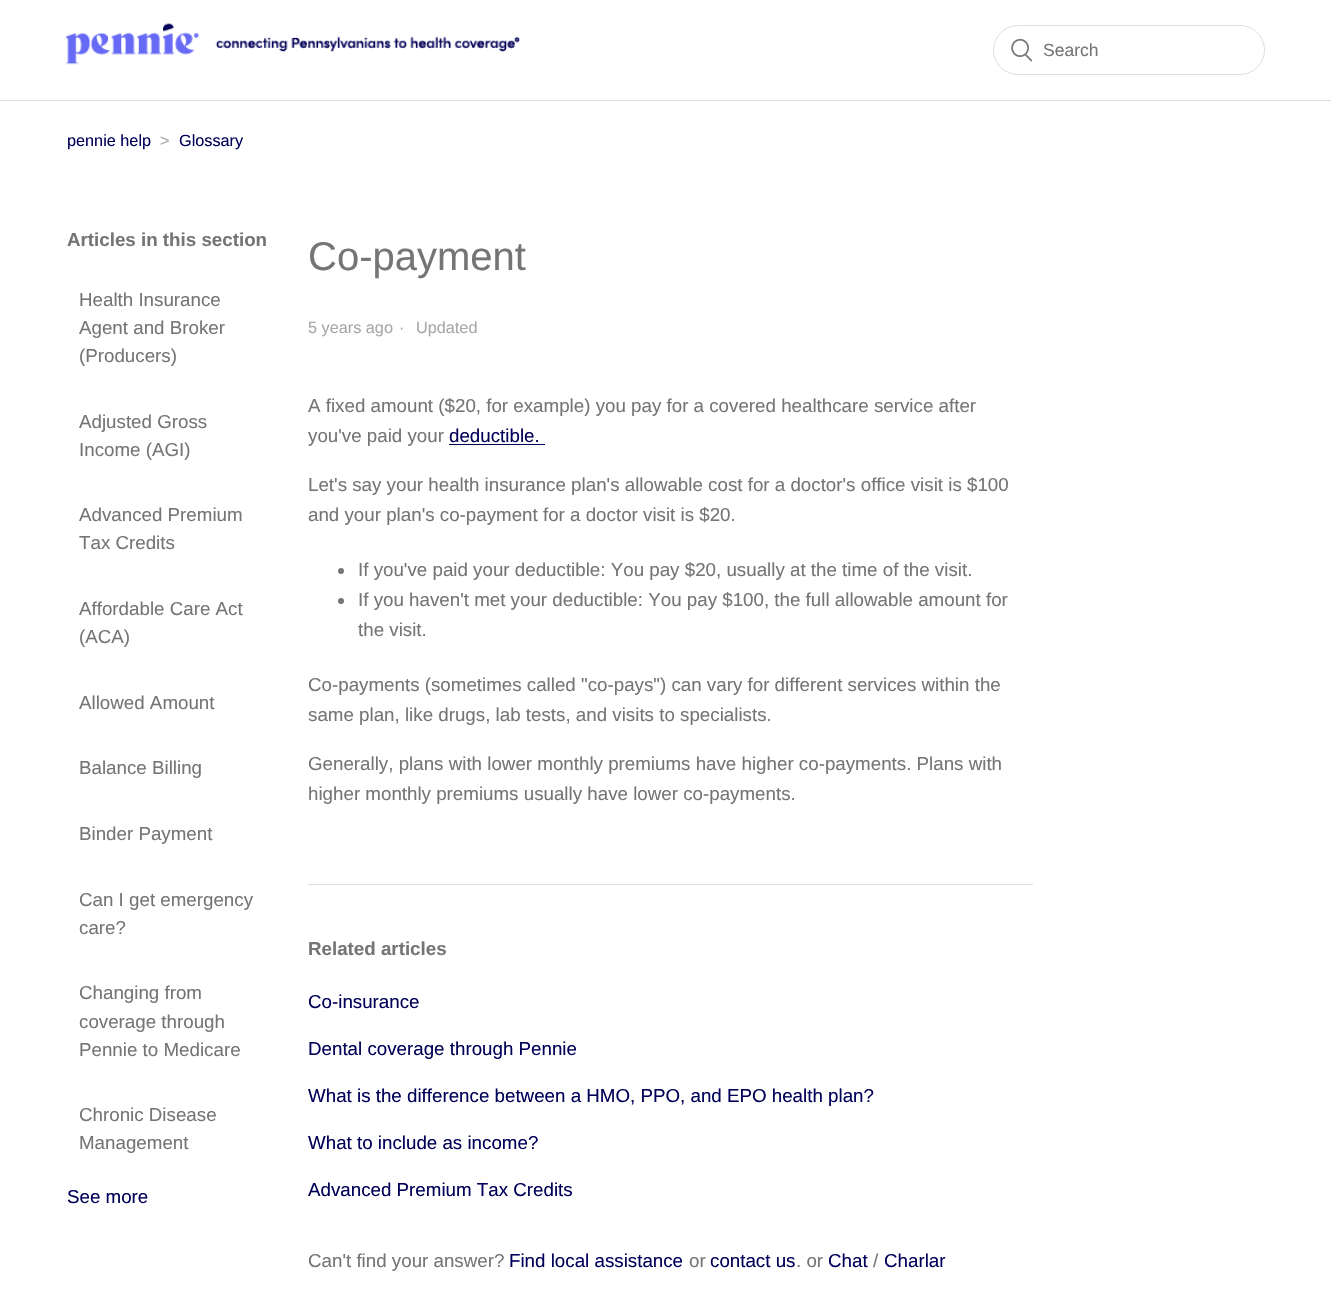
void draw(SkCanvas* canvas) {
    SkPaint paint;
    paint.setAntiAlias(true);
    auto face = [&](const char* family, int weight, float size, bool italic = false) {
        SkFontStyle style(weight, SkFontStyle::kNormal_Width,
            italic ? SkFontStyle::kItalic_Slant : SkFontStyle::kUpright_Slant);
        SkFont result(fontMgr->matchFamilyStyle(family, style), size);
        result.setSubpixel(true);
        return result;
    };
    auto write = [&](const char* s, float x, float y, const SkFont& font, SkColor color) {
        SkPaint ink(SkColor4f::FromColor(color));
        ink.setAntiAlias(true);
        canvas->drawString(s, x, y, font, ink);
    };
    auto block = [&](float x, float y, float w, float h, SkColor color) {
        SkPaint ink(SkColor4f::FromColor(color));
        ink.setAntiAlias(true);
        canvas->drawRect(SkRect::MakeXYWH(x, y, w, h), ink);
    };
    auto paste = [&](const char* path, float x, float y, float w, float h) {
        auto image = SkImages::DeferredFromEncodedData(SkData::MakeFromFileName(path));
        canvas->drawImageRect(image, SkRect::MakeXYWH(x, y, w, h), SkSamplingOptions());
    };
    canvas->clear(SK_ColorWHITE);
    paste("pic1.png", 66, 23, 454, 42);
    paint.setStyle(SkPaint::kStroke_Style);
    paint.setStrokeWidth(1);
    paint.setColor(SkColorSetRGB(221, 221, 221));
    canvas->drawRoundRect(SkRect::MakeXYWH(993.5f, 25.5f, 271, 49), 24.5f, 24.5f, paint);
    paste("pic2.png", 1011, 38, 22, 24);
    auto kFont1 = face("Liberation Sans", 400, 17.5f);
    write("Search", 1043, 56, kFont1, SkColorSetRGB(118, 116, 116));
    block(0, 100, 1331, 1, SkColorSetRGB(221, 221, 221));
    auto kFont2 = face("Liberation Sans", 400, 16.25f);
    write("pennie help", 67, 146, kFont2, SkColorSetRGB(0, 0, 88));
    write(">", 160, 146, kFont2, SkColorSetRGB(169, 167, 167));
    write("Glossary", 179, 146, kFont2, SkColorSetRGB(0, 0, 88));
    auto kFont3 = face("Liberation Sans", 700, 18.75f);
    write("Articles in this section", 67, 246, kFont3, SkColorSetRGB(118, 116, 116));
    auto kFont4 = face("Liberation Sans", 400, 18.75f);
    write("Health Insurance", 79, 306, kFont4, SkColorSetRGB(118, 116, 116));
    write("Agent and Broker", 79, 334, kFont4, SkColorSetRGB(118, 116, 116));
    write("(Producers)", 79, 362, kFont4, SkColorSetRGB(118, 116, 116));
    write("Adjusted Gross", 79, 428, kFont4, SkColorSetRGB(118, 116, 116));
    write("Income (AGI)", 79, 456, kFont4, SkColorSetRGB(118, 116, 116));
    write("Advanced Premium", 79, 521, kFont4, SkColorSetRGB(118, 116, 116));
    write("Tax Credits", 79, 549, kFont4, SkColorSetRGB(118, 116, 116));
    write("Affordable Care Act", 79, 615, kFont4, SkColorSetRGB(118, 116, 116));
    write("(ACA)", 79, 643, kFont4, SkColorSetRGB(118, 116, 116));
    write("Allowed Amount", 79, 709, kFont4, SkColorSetRGB(118, 116, 116));
    write("Balance Billing", 79, 774, kFont4, SkColorSetRGB(118, 116, 116));
    write("Binder Payment", 79, 840, kFont4, SkColorSetRGB(118, 116, 116));
    write("Can I get emergency", 79, 906, kFont4, SkColorSetRGB(118, 116, 116));
    write("care?", 79, 934, kFont4, SkColorSetRGB(118, 116, 116));
    write("Changing from", 79, 999, kFont4, SkColorSetRGB(118, 116, 116));
    write("coverage through", 79, 1028, kFont4, SkColorSetRGB(118, 116, 116));
    write("Pennie to Medicare", 79, 1056, kFont4, SkColorSetRGB(118, 116, 116));
    write("Chronic Disease", 79, 1121, kFont4, SkColorSetRGB(118, 116, 116));
    write("Management", 79, 1149, kFont4, SkColorSetRGB(118, 116, 116));
    write("See more", 67, 1203, kFont4, SkColorSetRGB(0, 0, 88));
    auto kFont5 = face("Liberation Sans", 400, 40);
    write("Co-payment", 308, 270, kFont5, SkColorSetRGB(118, 116, 116));
    write("5 years ago", 308, 333, kFont2, SkColorSetRGB(169, 167, 167));
    write("·", 399, 333, kFont2, SkColorSetRGB(169, 167, 167));
    write("Updated", 416, 333, kFont2, SkColorSetRGB(169, 167, 167));
    write("A fixed amount ($20, for example) you pay for a covered healthcare service after", 308, 412, kFont4, SkColorSetRGB(118, 116, 116));
    write("you've paid your", 308, 442, kFont4, SkColorSetRGB(118, 116, 116));
    write("deductible.", 449, 442, kFont4, SkColorSetRGB(0, 0, 88));
    block(449, 444, 96, 1, SkColorSetRGB(0, 0, 88));
    write("Let's say your health insurance plan's allowable cost for a doctor's office visit is $100", 308, 491, kFont4, SkColorSetRGB(118, 116, 116));
    write("and your plan's co-payment for a doctor visit is $20.", 308, 521, kFont4, SkColorSetRGB(118, 116, 116));
    paint.setStyle(SkPaint::kFill_Style);
    paint.setColor(SkColorSetRGB(118, 116, 116));
    canvas->drawCircle(341, 571, 3, paint);
    write("If you've paid your deductible: You pay $20, usually at the time of the visit.", 358, 576, kFont4, SkColorSetRGB(118, 116, 116));
    canvas->drawCircle(341, 601, 3, paint);
    write("If you haven't met your deductible: You pay $100, the full allowable amount for", 358, 606, kFont4, SkColorSetRGB(118, 116, 116));
    write("the visit.", 358, 636, kFont4, SkColorSetRGB(118, 116, 116));
    write("Co-payments (sometimes called \"co-pays\") can vary for different services within the", 308, 691, kFont4, SkColorSetRGB(118, 116, 116));
    write("same plan, like drugs, lab tests, and visits to specialists.", 308, 721, kFont4, SkColorSetRGB(118, 116, 116));
    write("Generally, plans with lower monthly premiums have higher co-payments. Plans with", 308, 770, kFont4, SkColorSetRGB(118, 116, 116));
    write("higher monthly premiums usually have lower co-payments.", 308, 800, kFont4, SkColorSetRGB(118, 116, 116));
    block(308, 884, 725, 1, SkColorSetRGB(221, 221, 221));
    write("Related articles", 308, 955, kFont3, SkColorSetRGB(118, 116, 116));
    write("Co-insurance", 308, 1008, kFont4, SkColorSetRGB(0, 0, 88));
    write("Dental coverage through Pennie", 308, 1055, kFont4, SkColorSetRGB(0, 0, 88));
    write("What is the difference between a HMO, PPO, and EPO health plan?", 308, 1102, kFont4, SkColorSetRGB(0, 0, 88));
    write("What to include as income?", 308, 1149, kFont4, SkColorSetRGB(0, 0, 88));
    write("Advanced Premium Tax Credits", 308, 1196, kFont4, SkColorSetRGB(0, 0, 88));
    write("Can't find your answer?", 308, 1267, kFont4, SkColorSetRGB(118, 116, 116));
    write("Find local assistance", 509, 1267, kFont4, SkColorSetRGB(0, 0, 88));
    write("or", 689, 1267, kFont4, SkColorSetRGB(118, 116, 116));
    write("contact us", 710, 1267, kFont4, SkColorSetRGB(0, 0, 88));
    write(". or", 796, 1267, kFont4, SkColorSetRGB(118, 116, 116));
    write("Chat", 828, 1267, kFont4, SkColorSetRGB(0, 0, 88));
    write("/", 873, 1267, kFont4, SkColorSetRGB(118, 116, 116));
    write("Charlar", 884, 1267, kFont4, SkColorSetRGB(0, 0, 88));
}
